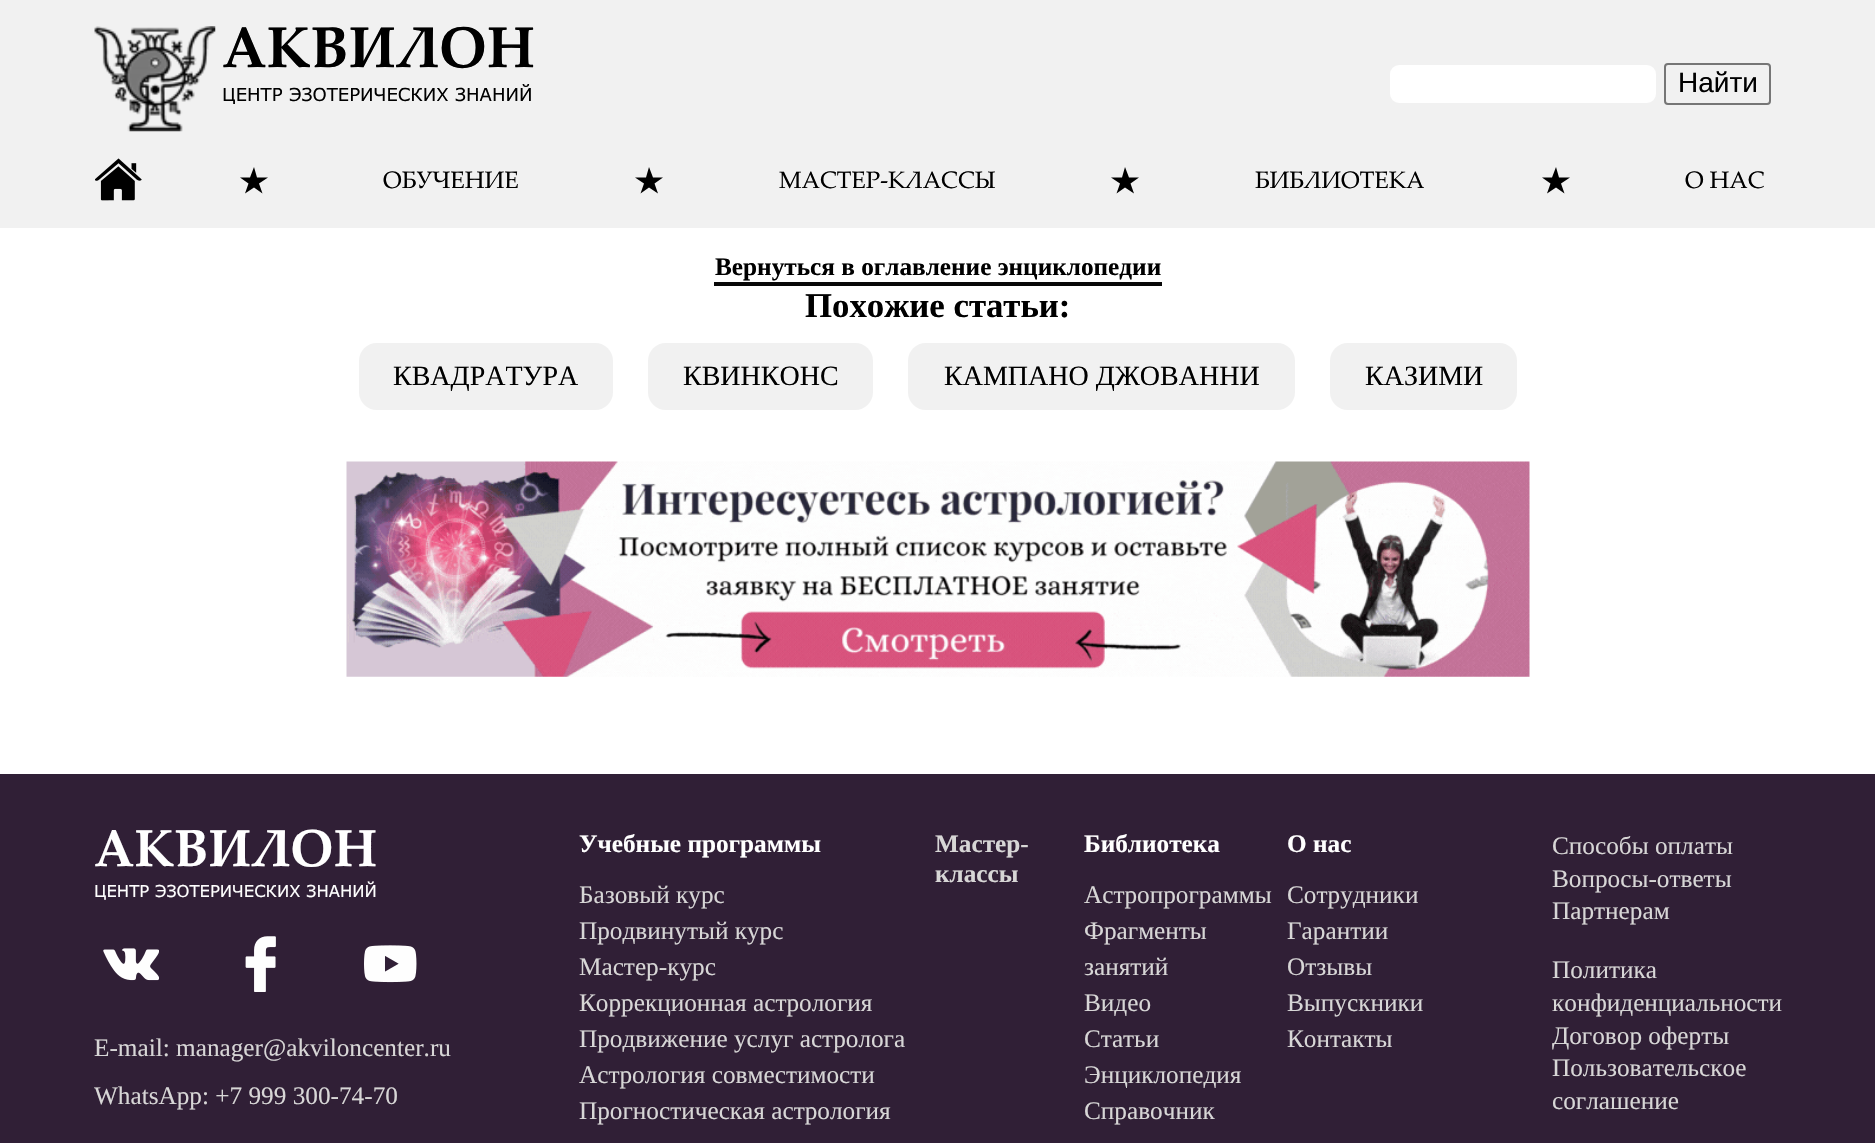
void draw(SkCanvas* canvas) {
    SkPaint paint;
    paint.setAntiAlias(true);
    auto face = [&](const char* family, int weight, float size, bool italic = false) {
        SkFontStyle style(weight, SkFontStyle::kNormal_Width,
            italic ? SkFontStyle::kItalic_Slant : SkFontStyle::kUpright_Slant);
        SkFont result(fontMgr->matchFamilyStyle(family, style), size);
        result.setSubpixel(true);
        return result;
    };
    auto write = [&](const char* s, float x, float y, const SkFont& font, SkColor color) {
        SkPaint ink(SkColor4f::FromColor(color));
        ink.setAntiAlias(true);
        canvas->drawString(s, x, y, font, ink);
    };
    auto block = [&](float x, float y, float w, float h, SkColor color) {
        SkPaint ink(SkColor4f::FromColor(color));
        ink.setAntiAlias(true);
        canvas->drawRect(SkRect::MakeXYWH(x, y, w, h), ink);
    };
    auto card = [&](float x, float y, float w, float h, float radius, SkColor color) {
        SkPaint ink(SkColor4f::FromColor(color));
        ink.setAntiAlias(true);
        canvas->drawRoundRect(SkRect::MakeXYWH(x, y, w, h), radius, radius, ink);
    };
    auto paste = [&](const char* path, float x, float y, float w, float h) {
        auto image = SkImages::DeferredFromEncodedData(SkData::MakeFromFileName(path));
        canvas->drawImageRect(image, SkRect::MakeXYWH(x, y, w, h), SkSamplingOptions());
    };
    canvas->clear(SK_ColorWHITE);
    block(714, 282, 448, 4, SK_ColorBLACK);
    paint.setColor(SkColorSetARGB(230, 255, 255, 255));
    paint.setMaskFilter(SkMaskFilter::MakeBlur(kNormal_SkBlurStyle, 26));
    canvas->drawRect(SkRect::MakeXYWH(5, 18, 1866, 217), paint);
    paint.setMaskFilter(nullptr);
    block(0, 0, 1875, 228, SkColorSetRGB(241, 241, 241));
    paste("pic1.png", 94, 26, 122, 106);
    auto kFont1 = face("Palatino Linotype", 700, 57.5f);
    write("АКВИЛОН", 222, 67, kFont1, SK_ColorBLACK);
    auto kFont2 = face("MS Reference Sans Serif", 400, 18);
    write("ЦЕНТР ЭЗОТЕРИЧЕСКИХ ЗНАНИЙ", 222, 101, kFont2, SK_ColorBLACK);
    paint.setColor(SK_ColorWHITE);
    canvas->drawRoundRect(SkRect::MakeXYWH(1391, 66, 264, 36), 8, 8, paint);
    paint.setStyle(SkPaint::kStroke_Style);
    paint.setStrokeWidth(2);
    canvas->drawRoundRect(SkRect::MakeXYWH(1391, 66, 264, 36), 8, 8, paint);
    paint.setColor(SkColorSetRGB(118, 118, 118));
    canvas->drawRoundRect(SkRect::MakeXYWH(1665, 64, 105, 40), 3, 3, paint);
    auto kFont3 = face("Liberation Sans", 400, 28);
    write("Найти", 1678, 92, kFont3, SK_ColorBLACK);
    paste("pic2.png", 95, 158, 47, 43);
    paint.setStyle(SkPaint::kFill_Style);
    paint.setColor(SK_ColorBLACK);
    canvas->drawPath(SkPathBuilder().moveTo(254, 187.5f).lineTo(262.5f, 193.5f).lineTo(259, 183.5f).lineTo(268, 177.5f).lineTo(257, 177.5f).lineTo(254, 167).lineTo(250, 177.5f).lineTo(240, 177.5f).lineTo(248.5f, 183.5f).lineTo(245, 193.5f).close().detach(), paint);
    auto kFont4 = face("Palatino Linotype", 400, 23.75f);
    write("ОБУЧЕНИЕ", 383, 188, kFont4, SK_ColorBLACK);
    canvas->drawPath(SkPathBuilder().moveTo(649, 187.5f).lineTo(658, 193.5f).lineTo(654.5f, 183.5f).lineTo(663, 177.5f).lineTo(653, 177.5f).lineTo(649, 167).lineTo(646, 177.5f).lineTo(635, 177.5f).lineTo(644, 183.5f).lineTo(640.5f, 193.5f).close().detach(), paint);
    write("МАСТЕР-КЛАССЫ", 779, 188, kFont4, SK_ColorBLACK);
    canvas->drawPath(SkPathBuilder().moveTo(1125, 187.5f).lineTo(1134, 193.5f).lineTo(1130.5f, 183.5f).lineTo(1139, 177.5f).lineTo(1129, 177.5f).lineTo(1125, 167).lineTo(1122, 177.5f).lineTo(1111, 177.5f).lineTo(1120, 183.5f).lineTo(1116.5f, 193.5f).close().detach(), paint);
    write("БИБЛИОТЕКА", 1255, 188, kFont4, SK_ColorBLACK);
    canvas->drawPath(SkPathBuilder().moveTo(1556, 187.5f).lineTo(1564.5f, 193.5f).lineTo(1561, 183.5f).lineTo(1570, 177.5f).lineTo(1559, 177.5f).lineTo(1556, 167).lineTo(1552, 177.5f).lineTo(1542, 177.5f).lineTo(1550.5f, 183.5f).lineTo(1547, 193.5f).close().detach(), paint);
    write("О НАС", 1685, 188, kFont4, SK_ColorBLACK);
    auto kFont5 = face("Liberation Serif", 700, 25.25f);
    write("Вернуться в оглавление энциклопедии", 715, 275, kFont5, SK_ColorBLACK);
    auto kFont6 = face("Liberation Serif", 700, 34.75f);
    write("Похожие статьи:", 805, 317, kFont6, SK_ColorBLACK);
    card(359, 343, 254, 67, 18, SkColorSetRGB(241, 241, 241));
    auto kFont7 = face("Liberation Serif", 400, 28);
    write("КВАДРАТУРА", 393, 385, kFont7, SK_ColorBLACK);
    card(648, 343, 225, 67, 18, SkColorSetRGB(241, 241, 241));
    write("КВИНКОНС", 683, 385, kFont7, SK_ColorBLACK);
    card(908, 343, 387, 67, 18, SkColorSetRGB(241, 241, 241));
    write("КАМПАНО ДЖОВАННИ", 944, 385, kFont7, SK_ColorBLACK);
    card(1330, 343, 187, 67, 18, SkColorSetRGB(241, 241, 241));
    write("КАЗИМИ", 1365, 385, kFont7, SK_ColorBLACK);
    paste("pic3.png", 346, 461, 1184, 216);
    block(0, 774, 1875, 369, SkColorSetRGB(48, 31, 54));
    auto kFont8 = face("Palatino Linotype", 700, 52);
    write("АКВИЛОН", 94, 866, kFont8, SK_ColorWHITE);
    auto kFont9 = face("MS Reference Sans Serif", 400, 16.4f);
    write("ЦЕНТР ЭЗОТЕРИЧЕСКИХ ЗНАНИЙ", 94, 897, kFont9, SK_ColorWHITE);
    paste("pic4.png", 103, 948, 56, 33);
    paste("pic5.png", 245, 936, 31, 56);
    paste("pic6.png", 364, 945, 53, 38);
    auto kFont10 = face("Liberation Serif", 400, 25.25f);
    write("E-mail: manager@akviloncenter.ru", 94, 1056, kFont10, SkColorSetRGB(215, 214, 214));
    write("WhatsApp: +7 999 300-74-70", 94, 1104, kFont10, SkColorSetRGB(215, 214, 214));
    write("Учебные программы", 579, 852, kFont5, SK_ColorWHITE);
    write("Базовый курс", 579, 903, kFont10, SkColorSetRGB(215, 214, 214));
    write("Продвинутый курс", 579, 939, kFont10, SkColorSetRGB(215, 214, 214));
    write("Мастер-курс", 579, 975, kFont10, SkColorSetRGB(215, 214, 214));
    write("Коррекционная астрология", 579, 1011, kFont10, SkColorSetRGB(215, 214, 214));
    write("Продвижение услуг астролога", 579, 1047, kFont10, SkColorSetRGB(215, 214, 214));
    write("Астрология совместимости", 579, 1083, kFont10, SkColorSetRGB(215, 214, 214));
    write("Прогностическая астрология", 579, 1119, kFont10, SkColorSetRGB(215, 214, 214));
    write("Мастер-", 935, 852, kFont5, SkColorSetRGB(215, 214, 214));
    write("классы", 935, 882, kFont5, SkColorSetRGB(215, 214, 214));
    write("Библиотека", 1084, 852, kFont5, SK_ColorWHITE);
    write("Астропрограммы", 1084, 903, kFont10, SkColorSetRGB(215, 214, 214));
    write("Фрагменты", 1084, 939, kFont10, SkColorSetRGB(215, 214, 214));
    write("занятий", 1084, 975, kFont10, SkColorSetRGB(215, 214, 214));
    write("Видео", 1084, 1011, kFont10, SkColorSetRGB(215, 214, 214));
    write("Статьи", 1084, 1047, kFont10, SkColorSetRGB(215, 214, 214));
    write("Энциклопедия", 1084, 1083, kFont10, SkColorSetRGB(215, 214, 214));
    write("Справочник", 1084, 1119, kFont10, SkColorSetRGB(215, 214, 214));
    write("О нас", 1287, 852, kFont5, SK_ColorWHITE);
    write("Сотрудники", 1287, 903, kFont10, SkColorSetRGB(215, 214, 214));
    write("Гарантии", 1287, 939, kFont10, SkColorSetRGB(215, 214, 214));
    write("Отзывы", 1287, 975, kFont10, SkColorSetRGB(215, 214, 214));
    write("Выпускники", 1287, 1011, kFont10, SkColorSetRGB(215, 214, 214));
    write("Контакты", 1287, 1047, kFont10, SkColorSetRGB(215, 214, 214));
    write("Способы оплаты", 1552, 854, kFont10, SkColorSetRGB(215, 214, 214));
    write("Вопросы-ответы", 1552, 887, kFont10, SkColorSetRGB(215, 214, 214));
    write("Партнерам", 1552, 919, kFont10, SkColorSetRGB(215, 214, 214));
    write("Политика", 1552, 978, kFont10, SkColorSetRGB(215, 214, 214));
    write("конфиденциальности", 1552, 1011, kFont10, SkColorSetRGB(215, 214, 214));
    write("Договор оферты", 1552, 1044, kFont10, SkColorSetRGB(215, 214, 214));
    write("Пользовательское", 1552, 1076, kFont10, SkColorSetRGB(215, 214, 214));
    write("соглашение", 1552, 1109, kFont10, SkColorSetRGB(215, 214, 214));
}
